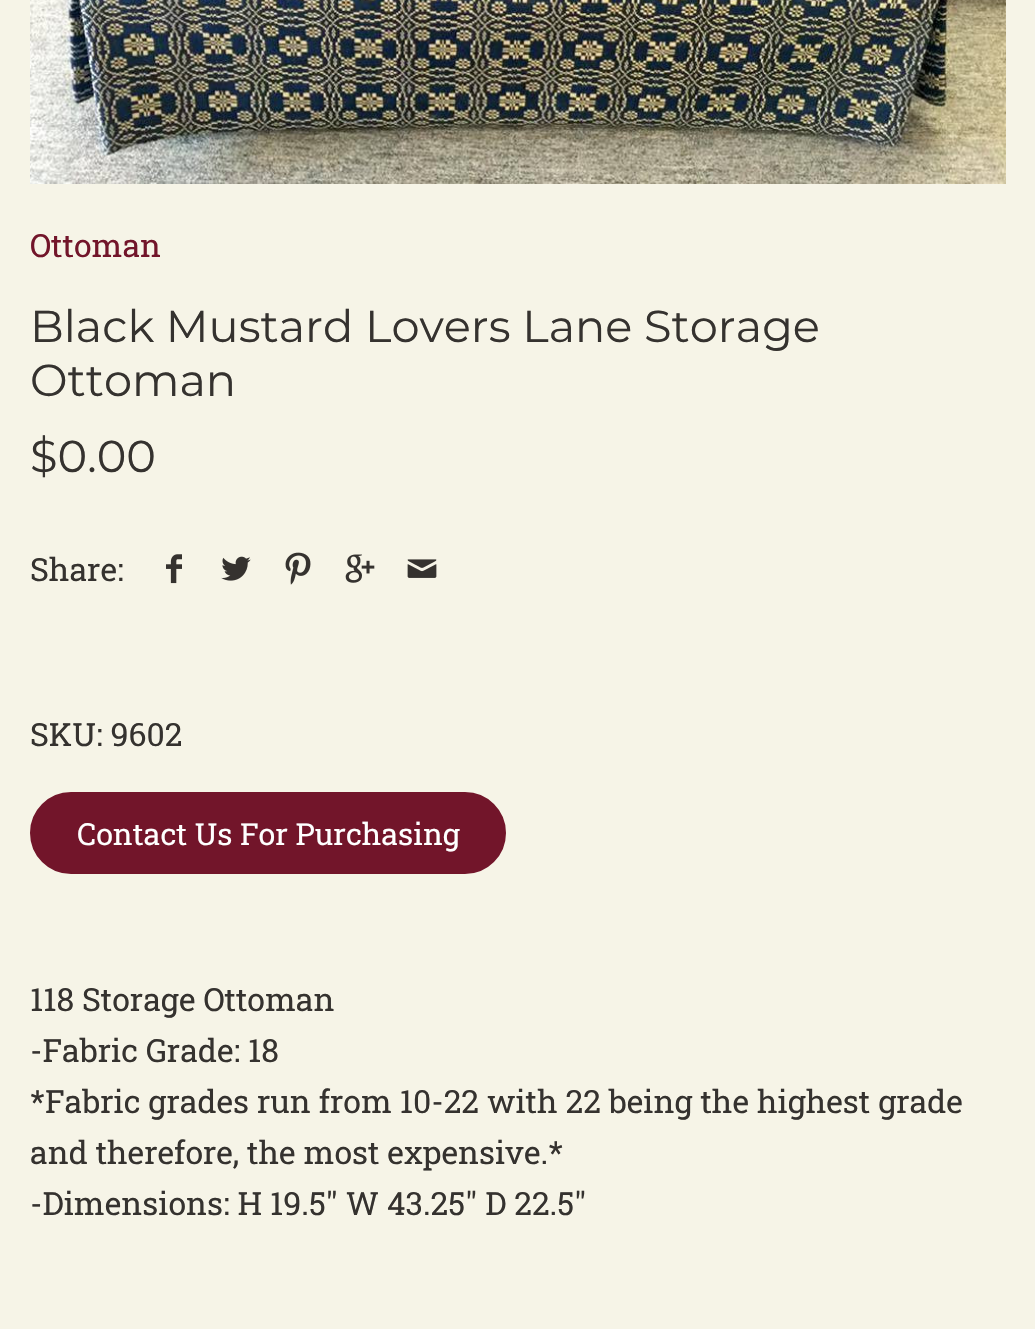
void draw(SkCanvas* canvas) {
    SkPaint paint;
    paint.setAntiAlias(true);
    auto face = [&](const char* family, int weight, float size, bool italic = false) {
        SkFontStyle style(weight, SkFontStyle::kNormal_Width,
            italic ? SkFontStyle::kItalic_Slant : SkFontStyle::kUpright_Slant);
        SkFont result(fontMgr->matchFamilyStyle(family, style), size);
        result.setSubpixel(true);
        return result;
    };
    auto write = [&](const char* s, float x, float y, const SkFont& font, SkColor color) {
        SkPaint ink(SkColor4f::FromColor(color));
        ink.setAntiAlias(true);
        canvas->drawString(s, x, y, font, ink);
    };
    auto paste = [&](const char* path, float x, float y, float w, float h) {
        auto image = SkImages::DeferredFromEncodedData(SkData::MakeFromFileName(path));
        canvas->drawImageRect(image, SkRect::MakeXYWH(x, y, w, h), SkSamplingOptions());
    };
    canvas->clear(SkColorSetRGB(246, 244, 231));
    paste("pic1.png", 30, 0, 976, 184);
    auto kFont1 = face("Roboto Slab", 400, 32);
    write("Ottoman", 30, 257, kFont1, SkColorSetRGB(114, 21, 42));
    auto kFont2 = face("Montserrat", 400, 44.75f);
    write("Black Mustard Lovers Lane Storage", 30, 342, kFont2, SkColorSetRGB(53, 50, 47));
    write("Ottoman", 30, 396, kFont2, SkColorSetRGB(53, 50, 47));
    write("$0.00", 30, 472, kFont2, SkColorSetRGB(53, 50, 47));
    write("Share:", 30, 581, kFont1, SkColorSetRGB(53, 50, 47));
    paste("pic2.png", 166, 554, 16, 30);
    paste("pic3.png", 221, 556, 30, 25);
    paste("pic4.png", 285, 552, 26, 33);
    paste("pic5.png", 345, 554, 30, 29);
    paste("pic6.png", 407, 559, 30, 19);
    write("SKU: 9602", 30, 746, kFont1, SkColorSetRGB(53, 50, 47));
    paint.setColor(SkColorSetRGB(114, 21, 42));
    canvas->drawRoundRect(SkRect::MakeXYWH(32, 794, 472, 78), 39, 39, paint);
    paint.setStyle(SkPaint::kStroke_Style);
    paint.setStrokeWidth(4);
    canvas->drawRoundRect(SkRect::MakeXYWH(32, 794, 472, 78), 39, 39, paint);
    auto kFont3 = face("Roboto Slab", 400, 30.4f);
    write("Contact Us For Purchasing", 77, 845, kFont3, SK_ColorWHITE);
    write("118 Storage Ottoman", 30, 1011, kFont1, SkColorSetRGB(53, 50, 47));
    write("-Fabric Grade: 18", 30, 1062, kFont1, SkColorSetRGB(53, 50, 47));
    write("*Fabric grades run from 10-22 with 22 being the highest grade", 30, 1113, kFont1, SkColorSetRGB(53, 50, 47));
    write("and therefore, the most expensive.*", 30, 1164, kFont1, SkColorSetRGB(53, 50, 47));
    write("-Dimensions: H 19.5\" W 43.25\" D 22.5\"", 30, 1215, kFont1, SkColorSetRGB(53, 50, 47));
}
